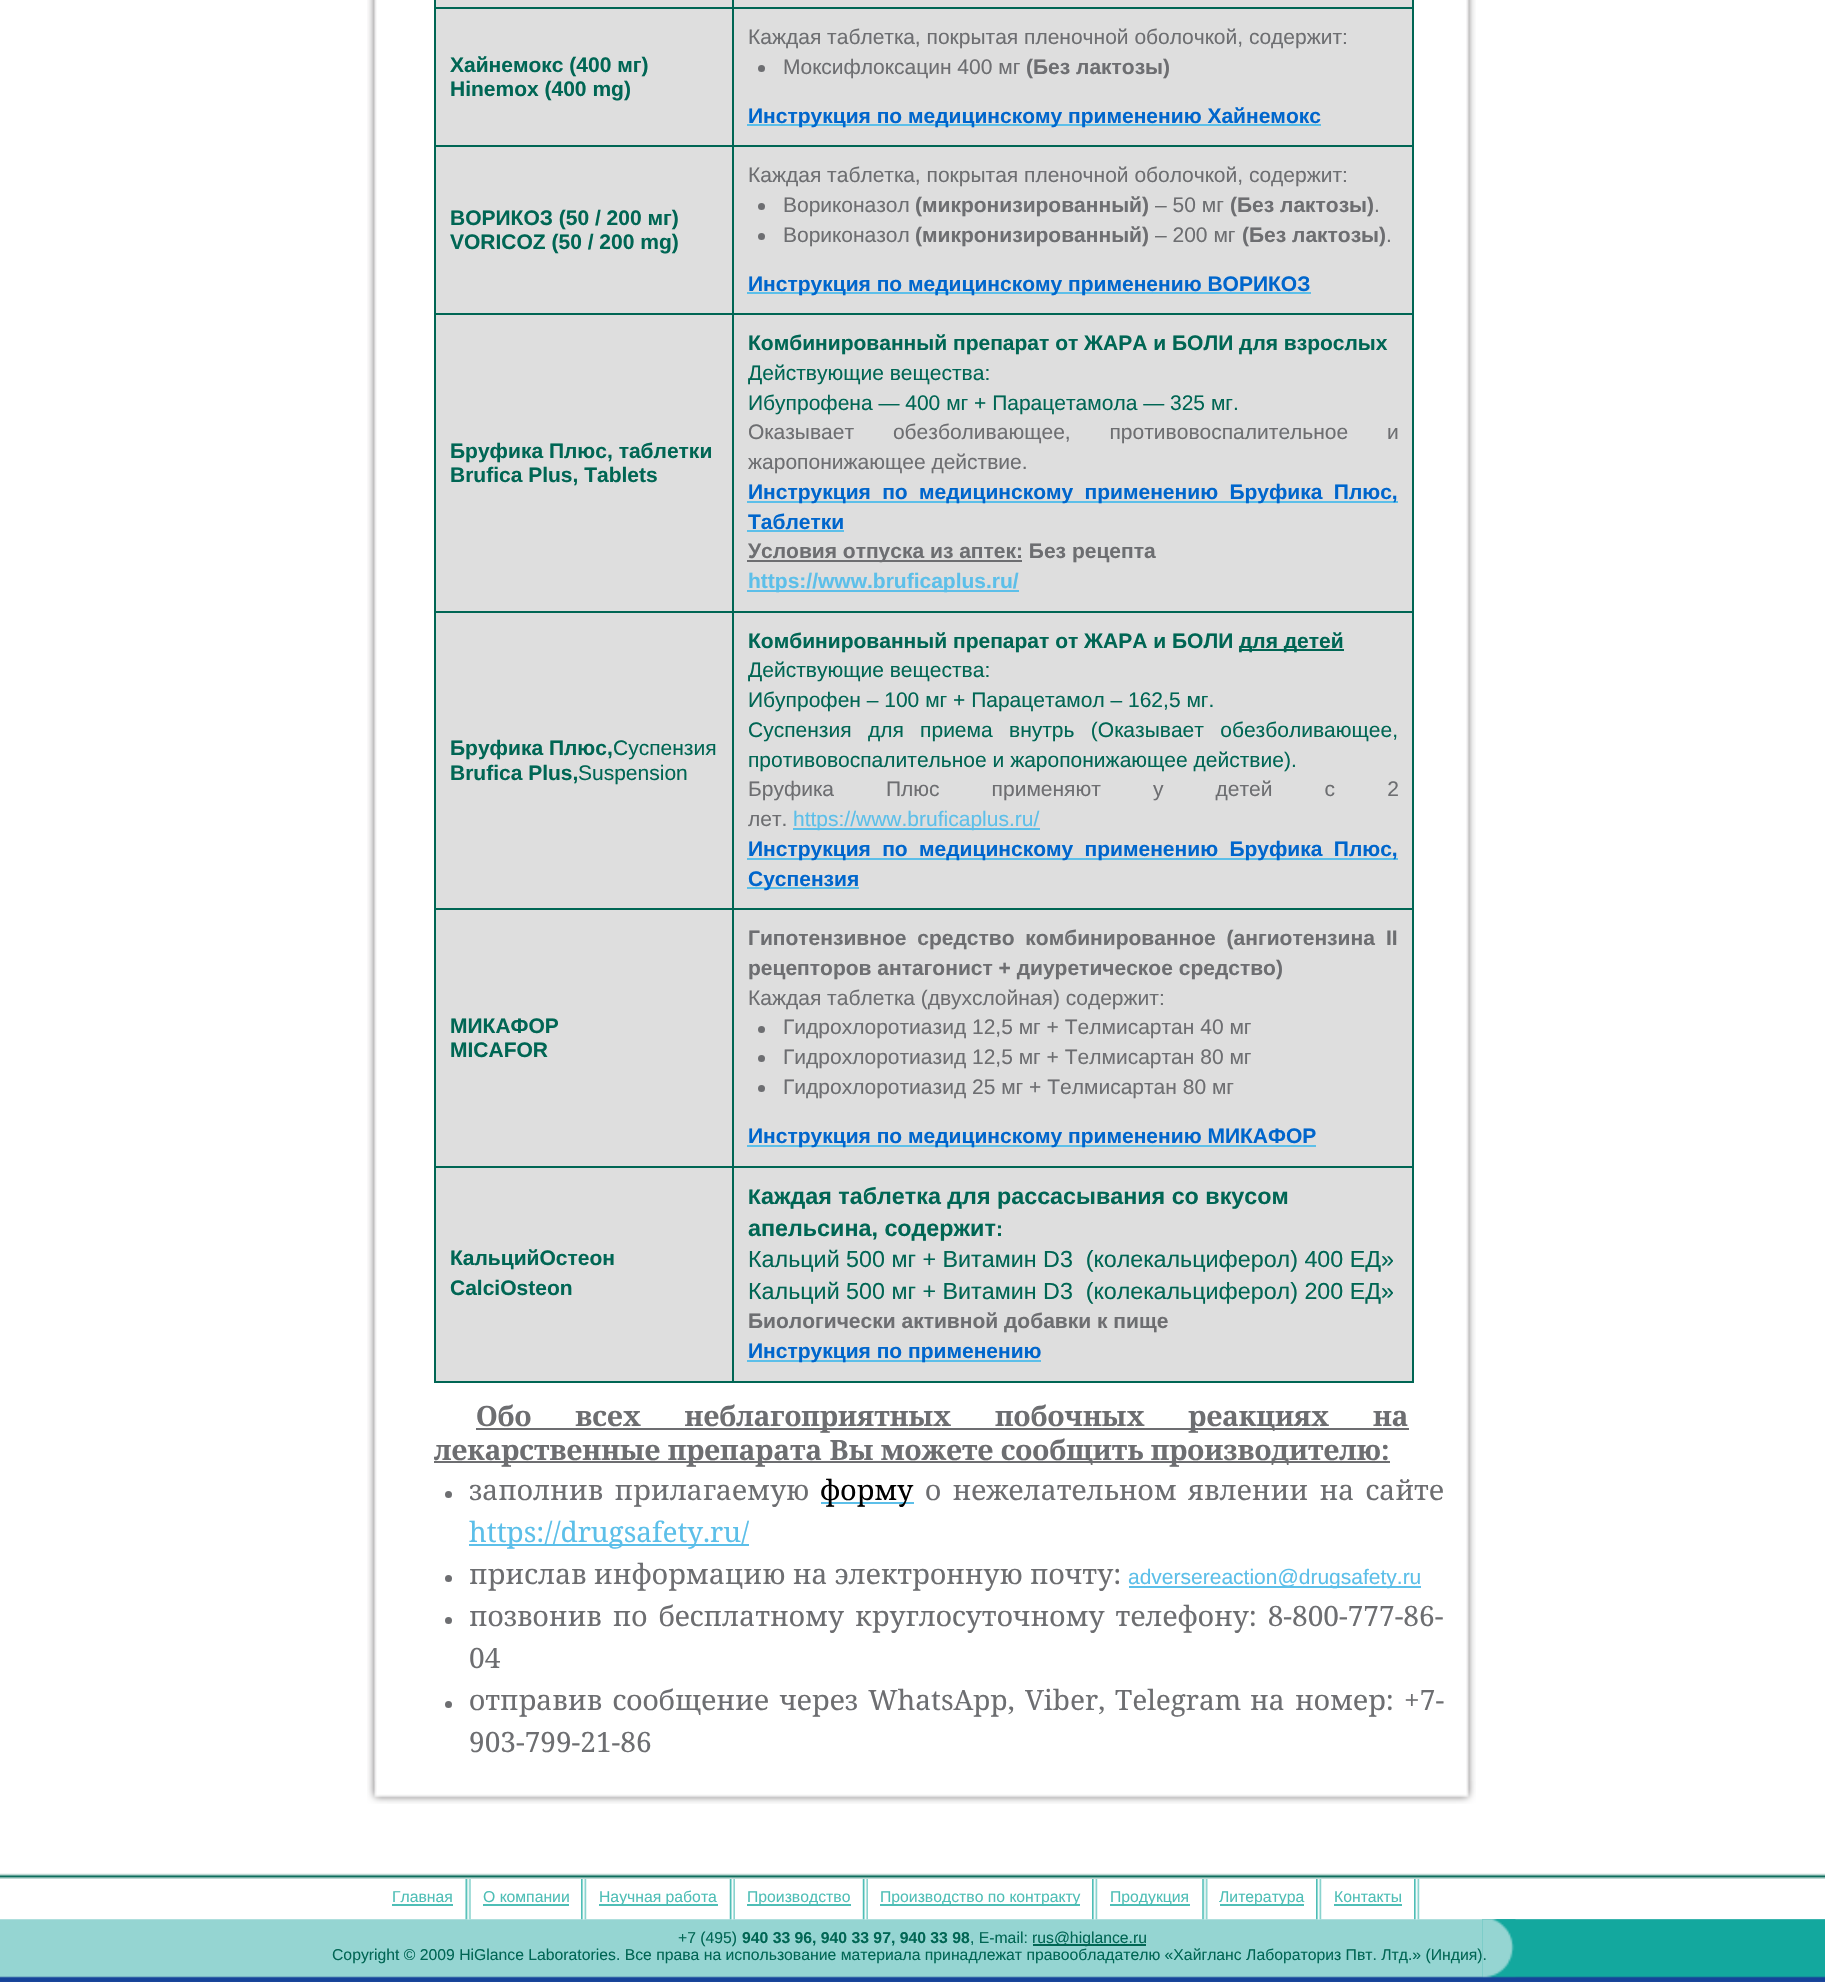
void draw(SkCanvas* canvas) {
    SkPaint paint;
    paint.setAntiAlias(true);
    auto face = [&](const char* family, int weight, float size, bool italic = false) {
        SkFontStyle style(weight, SkFontStyle::kNormal_Width,
            italic ? SkFontStyle::kItalic_Slant : SkFontStyle::kUpright_Slant);
        SkFont result(fontMgr->matchFamilyStyle(family, style), size);
        result.setSubpixel(true);
        return result;
    };
    auto write = [&](const char* s, float x, float y, const SkFont& font, SkColor color) {
        SkPaint ink(SkColor4f::FromColor(color));
        ink.setAntiAlias(true);
        canvas->drawString(s, x, y, font, ink);
    };
    auto writeSpaced = [&](const char* s, float x, float y, const SkFont& font, const SkPaint& ink, float letter, float word) {
        std::vector<SkGlyphID> glyphs(font.countText(s, strlen(s), SkTextEncoding::kUTF8));
        std::vector<float> xs(glyphs.size());
        font.textToGlyphs(s, strlen(s), SkTextEncoding::kUTF8, glyphs);
        font.getXPos(glyphs, xs, x);
        float extra = 0;
        for (size_t i = 0; i < glyphs.size(); i++) {
            xs[i] += extra;
            extra += letter + word * (glyphs[i] == font.unicharToGlyph(' '));
        }
        canvas->drawTextBlob(SkTextBlob::MakeFromPosHGlyphs(glyphs, xs, y, font), 0, 0, ink);
    };
    auto block = [&](float x, float y, float w, float h, SkColor color) {
        SkPaint ink(SkColor4f::FromColor(color));
        ink.setAntiAlias(true);
        canvas->drawRect(SkRect::MakeXYWH(x, y, w, h), ink);
    };
    auto paste = [&](const char* path, float x, float y, float w, float h) {
        auto image = SkImages::DeferredFromEncodedData(SkData::MakeFromFileName(path));
        canvas->drawImageRect(image, SkRect::MakeXYWH(x, y, w, h), SkSamplingOptions());
    };
    canvas->clear(SK_ColorWHITE);
    paste("pic1.png", 367, 0, 1109, 1781);
    block(436, 0, 296, 7, SkColorSetRGB(222, 222, 222));
    block(734, 0, 678, 7, SkColorSetRGB(222, 222, 222));
    block(732, 7, 682, 2, SkColorSetRGB(0, 102, 84));
    block(732, 145, 682, 2, SkColorSetRGB(0, 102, 84));
    block(732, 313, 682, 2, SkColorSetRGB(0, 102, 84));
    block(732, 611, 682, 2, SkColorSetRGB(0, 102, 84));
    block(732, 908, 682, 2, SkColorSetRGB(0, 102, 84));
    block(732, 1166, 682, 2, SkColorSetRGB(0, 102, 84));
    block(1412, 1166, 2, 217, SkColorSetRGB(0, 102, 84));
    block(732, 1381, 682, 2, SkColorSetRGB(0, 102, 84));
    block(732, 1166, 2, 217, SkColorSetRGB(0, 102, 84));
    block(434, 1166, 299, 2, SkColorSetRGB(0, 102, 84));
    block(732, 908, 2, 259, SkColorSetRGB(0, 102, 84));
    block(434, 908, 299, 2, SkColorSetRGB(0, 102, 84));
    block(732, 611, 2, 299, SkColorSetRGB(0, 102, 84));
    block(434, 611, 299, 2, SkColorSetRGB(0, 102, 84));
    block(732, 313, 2, 300, SkColorSetRGB(0, 102, 84));
    block(434, 313, 299, 2, SkColorSetRGB(0, 102, 84));
    block(732, 145, 2, 170, SkColorSetRGB(0, 102, 84));
    block(434, 145, 299, 2, SkColorSetRGB(0, 102, 84));
    block(732, 7, 2, 140, SkColorSetRGB(0, 102, 84));
    block(434, 7, 299, 2, SkColorSetRGB(0, 102, 84));
    block(732, 0, 2, 9, SkColorSetRGB(0, 102, 84));
    block(436, 9, 296, 136, SkColorSetRGB(222, 222, 222));
    block(434, 1381, 299, 2, SkColorSetRGB(0, 102, 84));
    block(434, 1166, 2, 217, SkColorSetRGB(0, 102, 84));
    block(434, 908, 2, 259, SkColorSetRGB(0, 102, 84));
    block(434, 611, 2, 299, SkColorSetRGB(0, 102, 84));
    block(434, 313, 2, 300, SkColorSetRGB(0, 102, 84));
    block(434, 145, 2, 170, SkColorSetRGB(0, 102, 84));
    block(434, 0, 2, 147, SkColorSetRGB(0, 102, 84));
    auto kFont1 = face("Liberation Sans", 700, 21);
    write("Хайнемокс (400 мг)", 450, 72, kFont1, SkColorSetRGB(0, 102, 84));
    write("Hinemox (400 mg)", 450, 96, kFont1, SkColorSetRGB(0, 102, 84));
    block(734, 9, 678, 136, SkColorSetRGB(222, 222, 222));
    block(1412, 908, 2, 259, SkColorSetRGB(0, 102, 84));
    block(1412, 611, 2, 299, SkColorSetRGB(0, 102, 84));
    block(1412, 313, 2, 300, SkColorSetRGB(0, 102, 84));
    block(1412, 145, 2, 170, SkColorSetRGB(0, 102, 84));
    block(1412, 0, 2, 147, SkColorSetRGB(0, 102, 84));
    auto kFont2 = face("Liberation Sans", 400, 21);
    write("Каждая таблетка, покрытая пленочной оболочкой, содержит:", 748, 44, kFont2, SkColorSetRGB(109, 110, 113));
    paint.setColor(SkColorSetRGB(109, 110, 113));
    canvas->drawCircle(761.5f, 68.5f, 3.5f, paint);
    write("Моксифлоксацин 400 мг", 783, 74, kFont2, SkColorSetRGB(109, 110, 113));
    write("(Без лактозы)", 1026, 74, kFont1, SkColorSetRGB(109, 110, 113));
    block(747, 124, 574, 2, SkColorSetRGB(92, 191, 233));
    write("Инструкция по медицинскому применению Хайнемокс", 748, 123, kFont1, SkColorSetRGB(0, 102, 204));
    block(436, 147, 296, 166, SkColorSetRGB(222, 222, 222));
    write("ВОРИКОЗ (50 / 200 мг)", 450, 225, kFont1, SkColorSetRGB(0, 102, 84));
    write("VORICOZ (50 / 200 mg)", 450, 249, kFont1, SkColorSetRGB(0, 102, 84));
    block(734, 147, 678, 166, SkColorSetRGB(222, 222, 222));
    write("Каждая таблетка, покрытая пленочной оболочкой, содержит:", 748, 182, kFont2, SkColorSetRGB(109, 110, 113));
    canvas->drawCircle(761.5f, 206.5f, 3.5f, paint);
    write("Вориконазол", 783, 212, kFont2, SkColorSetRGB(109, 110, 113));
    write("(микронизированный)", 915, 212, kFont1, SkColorSetRGB(109, 110, 113));
    write("– 50 мг", 1155, 212, kFont2, SkColorSetRGB(109, 110, 113));
    write("(Без лактозы)", 1230, 212, kFont1, SkColorSetRGB(109, 110, 113));
    write(".", 1374, 212, kFont2, SkColorSetRGB(109, 110, 113));
    canvas->drawCircle(761.5f, 236.5f, 3.5f, paint);
    write("Вориконазол", 783, 242, kFont2, SkColorSetRGB(109, 110, 113));
    write("(микронизированный)", 915, 242, kFont1, SkColorSetRGB(109, 110, 113));
    write("– 200 мг", 1155, 242, kFont2, SkColorSetRGB(109, 110, 113));
    write("(Без лактозы)", 1242, 242, kFont1, SkColorSetRGB(109, 110, 113));
    write(".", 1386, 242, kFont2, SkColorSetRGB(109, 110, 113));
    block(747, 292, 564, 2, SkColorSetRGB(92, 191, 233));
    write("Инструкция по медицинскому применению ВОРИКОЗ", 748, 291, kFont1, SkColorSetRGB(0, 102, 204));
    block(436, 315, 296, 296, SkColorSetRGB(222, 222, 222));
    write("Бруфика Плюс, таблетки", 450, 458, kFont1, SkColorSetRGB(0, 102, 84));
    write("Brufica Plus, Tablets", 450, 482, kFont1, SkColorSetRGB(0, 102, 84));
    block(734, 315, 678, 296, SkColorSetRGB(222, 222, 222));
    write("Комбинированный препарат от ЖАРА и БОЛИ для взрослых", 748, 350, kFont1, SkColorSetRGB(0, 102, 84));
    write("Действующие вещества:", 748, 380, kFont2, SkColorSetRGB(0, 102, 84));
    write("Ибупрофена — 400 мг + Парацетамола — 325 мг.", 748, 410, kFont2, SkColorSetRGB(0, 102, 84));
    writeSpaced("Оказывает обезболивающее, противовоспалительное и", 748, 439, kFont2, paint, 0, 33);
    write("жаропонижающее действие.", 748, 469, kFont2, SkColorSetRGB(109, 110, 113));
    block(747, 501, 651, 2, SkColorSetRGB(92, 191, 233));
    paint.setColor(SkColorSetRGB(0, 102, 204));
    writeSpaced("Инструкция по медицинскому применению Бруфика Плюс,", 748, 499, kFont1, paint, 0, 5.5f);
    write("Таблетки", 748, 529, kFont1, SkColorSetRGB(0, 102, 204));
    block(747, 530, 97, 2, SkColorSetRGB(92, 191, 233));
    block(747, 560, 275, 2, SkColorSetRGB(109, 110, 113));
    write("Условия отпуска из аптек: Без рецепта", 748, 558, kFont1, SkColorSetRGB(109, 110, 113));
    block(747, 590, 272, 2, SkColorSetRGB(92, 191, 233));
    write("https://www.bruficaplus.ru/", 748, 588, kFont1, SkColorSetRGB(92, 191, 233));
    block(436, 613, 296, 295, SkColorSetRGB(222, 222, 222));
    write("Бруфика Плюс,", 450, 755, kFont1, SkColorSetRGB(0, 102, 84));
    write("Суспензия", 613, 755, kFont2, SkColorSetRGB(0, 102, 84));
    write("Brufica Plus,", 450, 780, kFont1, SkColorSetRGB(0, 102, 84));
    write("Suspension", 578, 780, kFont2, SkColorSetRGB(0, 102, 84));
    block(734, 613, 678, 295, SkColorSetRGB(222, 222, 222));
    write("Комбинированный препарат от ЖАРА и БОЛИ", 748, 648, kFont1, SkColorSetRGB(0, 102, 84));
    block(1239, 649, 105, 2, SkColorSetRGB(0, 102, 84));
    write("для детей", 1239, 648, kFont1, SkColorSetRGB(0, 102, 84));
    write("Действующие вещества:", 748, 677, kFont2, SkColorSetRGB(0, 102, 84));
    write("Ибупрофен – 100 мг + Парацетамол – 162,5 мг.", 748, 707, kFont2, SkColorSetRGB(0, 102, 84));
    paint.setColor(SkColorSetRGB(0, 102, 84));
    writeSpaced("Суспензия для приема внутрь (Оказывает обезболивающее,", 748, 737, kFont2, paint, 0, 10.5f);
    write("противовоспалительное и жаропонижающее действие).", 748, 767, kFont2, SkColorSetRGB(0, 102, 84));
    paint.setColor(SkColorSetRGB(109, 110, 113));
    writeSpaced("Бруфика Плюс применяют у детей с 2", 748, 796, kFont2, paint, 0, 46.25f);
    write("лет.", 748, 826, kFont2, SkColorSetRGB(109, 110, 113));
    block(793, 828, 247, 2, SkColorSetRGB(92, 191, 233));
    write("https://www.bruficaplus.ru/", 793, 826, kFont2, SkColorSetRGB(92, 191, 233));
    block(747, 858, 651, 2, SkColorSetRGB(92, 191, 233));
    paint.setColor(SkColorSetRGB(0, 102, 204));
    writeSpaced("Инструкция по медицинскому применению Бруфика Плюс,", 748, 856, kFont1, paint, 0, 5.5f);
    block(747, 887, 112, 2, SkColorSetRGB(92, 191, 233));
    write("Суспензия", 748, 886, kFont1, SkColorSetRGB(0, 102, 204));
    block(436, 910, 296, 256, SkColorSetRGB(222, 222, 222));
    write("МИКАФОР", 450, 1033, kFont1, SkColorSetRGB(0, 102, 84));
    write("MICAFOR", 450, 1057, kFont1, SkColorSetRGB(0, 102, 84));
    block(734, 910, 678, 256, SkColorSetRGB(222, 222, 222));
    paint.setColor(SkColorSetRGB(109, 110, 113));
    writeSpaced("Гипотензивное средство комбинированное (ангиотензина", 748, 945, kFont1, paint, 0, 5);
    write("II", 1386, 945, kFont1, SkColorSetRGB(109, 110, 113));
    write("рецепторов антагонист + диуретическое средство)", 748, 975, kFont1, SkColorSetRGB(109, 110, 113));
    write("Каждая таблетка (двухслойная) содержит:", 748, 1005, kFont2, SkColorSetRGB(109, 110, 113));
    canvas->drawCircle(761.5f, 1029.5f, 3.5f, paint);
    write("Гидрохлоротиазид 12,5 мг + Телмисартан 40 мг", 783, 1034, kFont2, SkColorSetRGB(109, 110, 113));
    canvas->drawCircle(761.5f, 1058.5f, 3.5f, paint);
    write("Гидрохлоротиазид 12,5 мг + Телмисартан 80 мг", 783, 1064, kFont2, SkColorSetRGB(109, 110, 113));
    canvas->drawCircle(761.5f, 1088.5f, 3.5f, paint);
    write("Гидрохлоротиазид 25 мг + Телмисартан 80 мг", 783, 1094, kFont2, SkColorSetRGB(109, 110, 113));
    block(747, 1145, 569, 2, SkColorSetRGB(92, 191, 233));
    write("Инструкция по медицинскому применению МИКАФОР", 748, 1143, kFont1, SkColorSetRGB(0, 102, 204));
    block(436, 1168, 296, 213, SkColorSetRGB(222, 222, 222));
    write("КальцийОстеон", 450, 1265, kFont1, SkColorSetRGB(0, 102, 84));
    write("CalciOsteon", 450, 1295, kFont1, SkColorSetRGB(0, 102, 84));
    block(734, 1168, 678, 213, SkColorSetRGB(222, 222, 222));
    write("К", 748, 1204, kFont1, SkColorSetRGB(0, 102, 84));
    auto kFont3 = face("Liberation Sans", 700, 23.3f);
    write("аждая таблетка для рассасывания со вкусом", 761, 1204, kFont3, SkColorSetRGB(0, 102, 84));
    write("апельсина, содержит", 748, 1236, kFont3, SkColorSetRGB(0, 102, 84));
    write(":", 996, 1236, kFont1, SkColorSetRGB(0, 102, 84));
    auto kFont4 = face("Liberation Sans", 400, 23.3f);
    write("Кальций 500 мг + Витамин D3  (колекальциферол) 400 ЕД»", 748, 1267, kFont4, SkColorSetRGB(0, 102, 84));
    write("Кальций 500 мг + Витамин D3  (колекальциферол) 200 ЕД»", 748, 1299, kFont4, SkColorSetRGB(0, 102, 84));
    write("Биологически активной добавки к пище", 748, 1328, kFont1, SkColorSetRGB(109, 110, 113));
    block(747, 1360, 294, 2, SkColorSetRGB(92, 191, 233));
    write("Инструкция по применению", 748, 1358, kFont1, SkColorSetRGB(0, 102, 204));
    block(476, 1428, 933, 2, SkColorSetRGB(109, 110, 113));
    auto kFont5 = face("Noto Serif", 700, 28);
    writeSpaced("Обо всех неблагоприятных побочных реакциях на", 476, 1426, kFont5, paint, 0, 36.5f);
    block(434, 1461, 956, 2, SkColorSetRGB(109, 110, 113));
    write("лекарственные препарата Вы можете сообщить производителю:", 434, 1460, kFont5, SkColorSetRGB(109, 110, 113));
    canvas->drawCircle(448.5f, 1494.5f, 3.5f, paint);
    auto kFont6 = face("Noto Serif", 400, 28);
    writeSpaced("заполнив прилагаемую", 469, 1500, kFont6, paint, 0, 4);
    block(821, 1502, 93, 2, SkColorSetRGB(92, 191, 233));
    write("форму", 820, 1500, kFont6, SK_ColorBLACK);
    writeSpaced("о нежелательном явлении на сайте", 925, 1500, kFont6, paint, 0, 4);
    block(469, 1544, 280, 2, SkColorSetRGB(92, 191, 233));
    write("https://drugsafety.ru/", 469, 1542, kFont6, SkColorSetRGB(92, 191, 233));
    canvas->drawCircle(448.5f, 1578.5f, 3.5f, paint);
    write("прислав информацию на электронную почту:", 469, 1584, kFont6, SkColorSetRGB(109, 110, 113));
    block(1129, 1586, 292, 2, SkColorSetRGB(92, 191, 233));
    write("adversereaction@drugsafety.ru", 1128, 1584, kFont2, SkColorSetRGB(92, 191, 233));
    canvas->drawCircle(448.5f, 1620.5f, 3.5f, paint);
    writeSpaced("позвонив по бесплатному круглосуточному телефону: 8-800-777-86-", 469, 1626, kFont6, paint, 0, 3.75f);
    write("04", 469, 1668, kFont6, SkColorSetRGB(109, 110, 113));
    canvas->drawCircle(448.5f, 1704.5f, 3.5f, paint);
    writeSpaced("отправив сообщение через WhatsApp, Viber,", 469, 1710, kFont6, paint, 0, 3);
    write("Telegram", 1115, 1710, kFont6, SkColorSetRGB(109, 110, 113));
    writeSpaced("на номер: +7-", 1250, 1710, kFont6, paint, 0, 3);
    write("903-799-21-86", 469, 1752, kFont6, SkColorSetRGB(109, 110, 113));
    paste("pic2.png", 367, 1781, 1109, 23);
    paste("pic3.png", 0, 1873, 1825, 6);
    paste("pic10.png", 0, 1919, 1825, 63);
    paste("pic4.png", 465, 1879, 6, 41);
    auto kFont7 = face("Liberation Sans", 400, 15.75f);
    write("Главная", 392, 1902, kFont7, SkColorSetRGB(78, 190, 182));
    block(392, 1904, 61, 2, SkColorSetRGB(78, 190, 182));
    paste("pic5.png", 581, 1879, 6, 41);
    write("О компании", 483, 1902, kFont7, SkColorSetRGB(78, 190, 182));
    block(483, 1904, 86, 2, SkColorSetRGB(78, 190, 182));
    paste("pic6.png", 729, 1879, 6, 41);
    block(599, 1904, 119, 2, SkColorSetRGB(78, 190, 182));
    write("Научная работа", 599, 1902, kFont7, SkColorSetRGB(78, 190, 182));
    paste("pic7.png", 862, 1879, 6, 41);
    block(747, 1904, 104, 2, SkColorSetRGB(78, 190, 182));
    write("Производство", 747, 1902, kFont7, SkColorSetRGB(78, 190, 182));
    paste("pic8.png", 1092, 1879, 6, 41);
    block(880, 1904, 200, 2, SkColorSetRGB(78, 190, 182));
    write("Производство по контракту", 880, 1902, kFont7, SkColorSetRGB(78, 190, 182));
    paste("pic9.png", 1202, 1879, 6, 41);
    block(1110, 1904, 80, 2, SkColorSetRGB(78, 190, 182));
    write("Продукция", 1110, 1902, kFont7, SkColorSetRGB(78, 190, 182));
    paste("pic5.png", 1316, 1879, 6, 41);
    block(1220, 1904, 84, 2, SkColorSetRGB(78, 190, 182));
    write("Литература", 1219, 1902, kFont7, SkColorSetRGB(78, 190, 182));
    paste("pic8.png", 1414, 1879, 6, 41);
    write("Контакты", 1334, 1902, kFont7, SkColorSetRGB(78, 190, 182));
    block(1334, 1904, 68, 2, SkColorSetRGB(78, 190, 182));
    write("+7 (495)", 678, 1943, kFont7, SkColorSetRGB(0, 102, 84));
    auto kFont8 = face("Liberation Sans", 700, 15.75f);
    write("940 33 96, 940 33 97, 940 33 98", 742, 1943, kFont8, SkColorSetRGB(0, 102, 84));
    write(", E-mail:", 970, 1943, kFont7, SkColorSetRGB(0, 102, 84));
    block(1033, 1944, 113, 2, SkColorSetRGB(0, 102, 84));
    write("rus@higlance.ru", 1032, 1943, kFont7, SkColorSetRGB(0, 102, 84));
    paste("pic11.png", 1482, 1919, 343, 59);
    paste("pic12.png", 1482, 1919, 34, 59);
    write("Copyright © 2009 HiGlance Laboratories. Все права на использование материала принадлежат правообладателю «Хайгланс Лабораториз Пвт. Лтд.» (Индия).", 332, 1960, kFont7, SkColorSetRGB(0, 102, 84));
}
